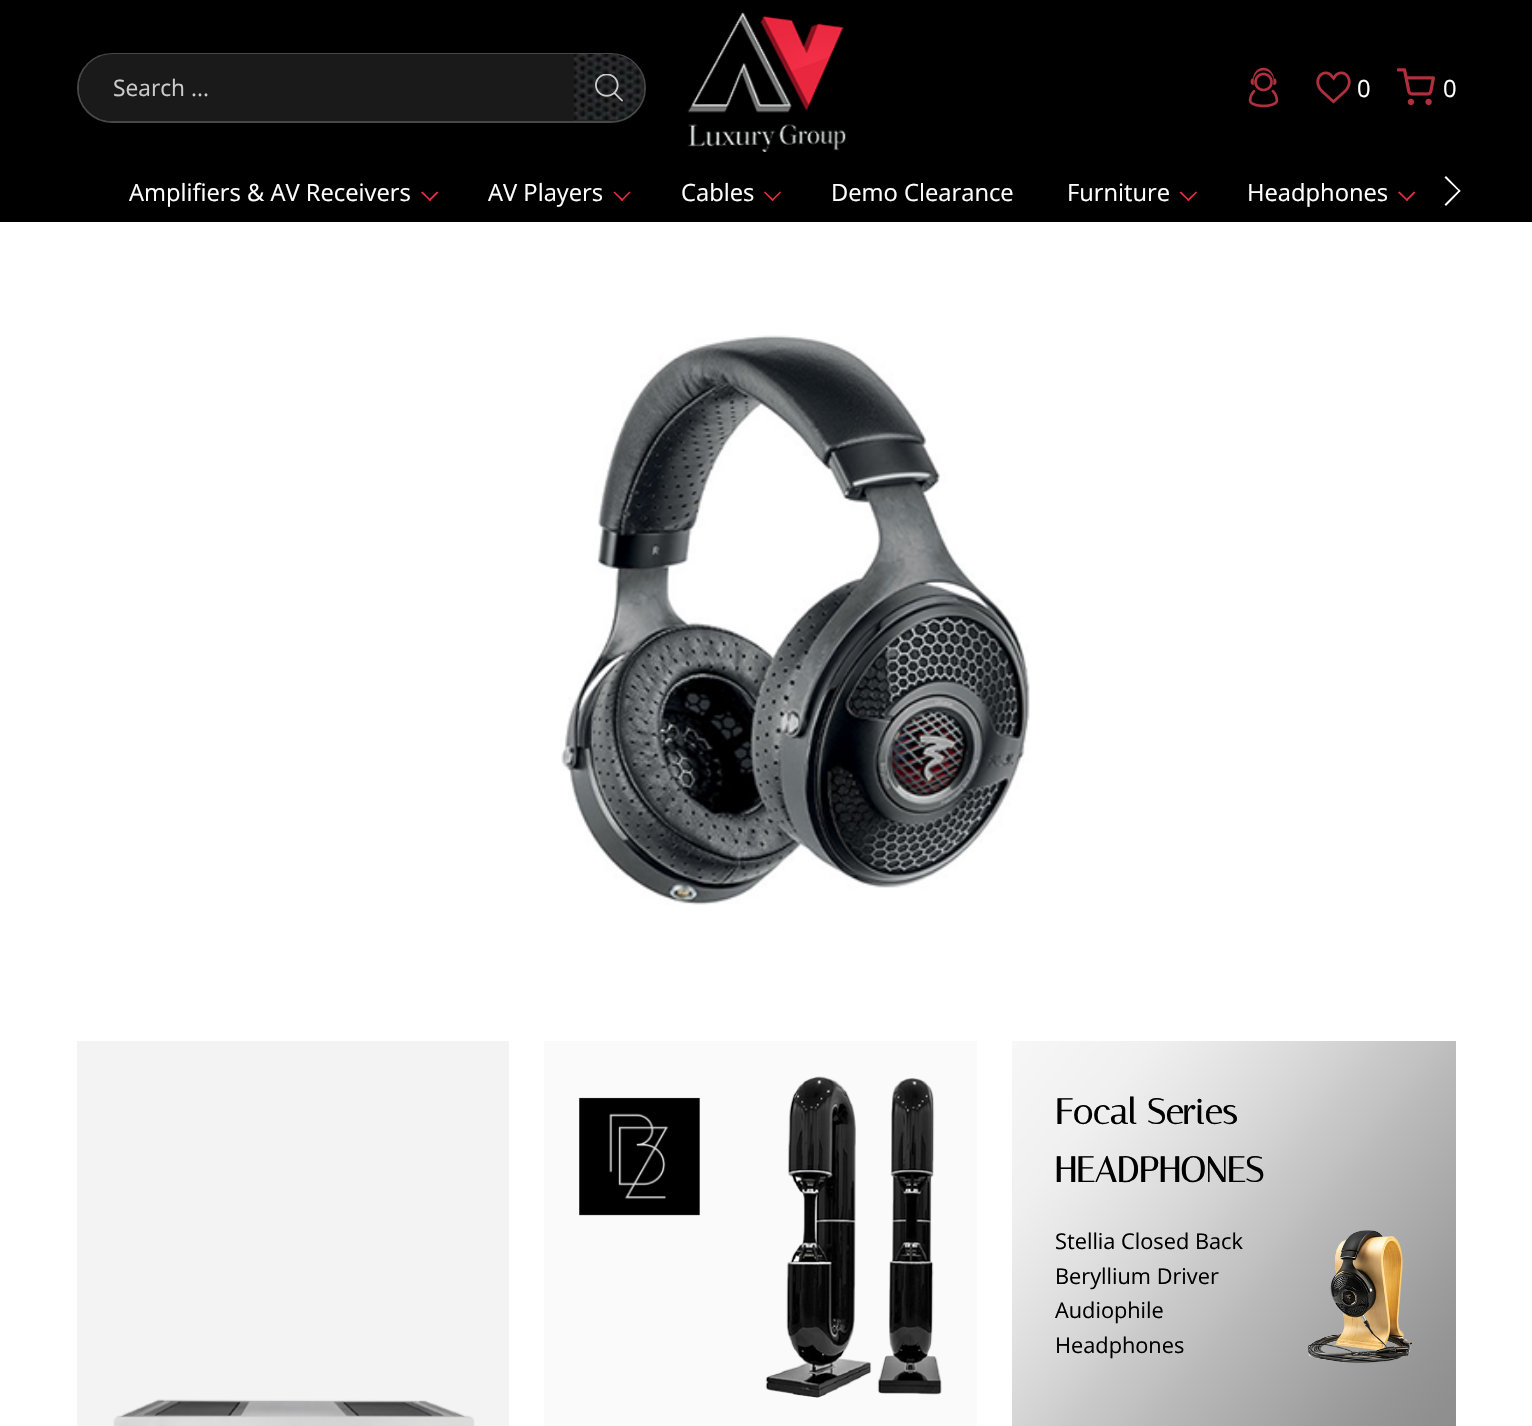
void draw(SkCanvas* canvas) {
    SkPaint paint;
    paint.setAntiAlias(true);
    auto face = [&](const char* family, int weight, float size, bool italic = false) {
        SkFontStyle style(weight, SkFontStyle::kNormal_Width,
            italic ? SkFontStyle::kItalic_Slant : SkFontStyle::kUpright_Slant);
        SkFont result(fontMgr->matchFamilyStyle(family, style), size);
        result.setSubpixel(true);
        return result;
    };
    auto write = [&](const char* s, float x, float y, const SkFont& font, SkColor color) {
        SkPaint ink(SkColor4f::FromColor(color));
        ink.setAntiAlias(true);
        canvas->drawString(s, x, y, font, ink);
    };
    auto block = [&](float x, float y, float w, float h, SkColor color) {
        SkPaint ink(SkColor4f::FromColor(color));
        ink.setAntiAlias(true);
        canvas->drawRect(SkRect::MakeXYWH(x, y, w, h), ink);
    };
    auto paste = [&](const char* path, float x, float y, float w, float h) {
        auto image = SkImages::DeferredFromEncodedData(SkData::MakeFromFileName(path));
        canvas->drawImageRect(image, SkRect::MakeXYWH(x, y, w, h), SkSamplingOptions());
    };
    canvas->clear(SK_ColorWHITE);
    block(0, 0, 1532, 222, SK_ColorBLACK);
    paint.setStyle(SkPaint::kStroke_Style);
    paint.setStrokeWidth(2);
    paint.setColor(SkColorSetRGB(71, 71, 71));
    canvas->drawRoundRect(SkRect::MakeXYWH(78, 54, 567, 68), 34, 34, paint);
    paint.setStyle(SkPaint::kFill_Style);
    paint.setColor(SkColorSetRGB(26, 26, 26));
    canvas->drawPath(SkPathBuilder().moveTo(112.5f, 54).lineTo(574, 54).lineTo(574, 121).lineTo(112.5f, 121).cubicTo(94, 121, 79, 106, 79, 87.5f).cubicTo(79, 69, 94, 54, 112.5f, 54).close().detach(), paint);
    auto kFont1 = face("Open Sans", 400, 22.75f);
    write("Search ...", 113, 96, kFont1, SkColorSetRGB(204, 204, 204));
    paint.setColor(SkColorSetRGB(34, 34, 34));
    canvas->drawPath(SkPathBuilder().moveTo(574, 54).lineTo(610.5f, 54).cubicTo(629, 54, 644, 69, 644, 87.5f).cubicTo(644, 106, 629, 121, 610.5f, 121).lineTo(574, 121).close().detach(), paint);
    paste("pic1.png", 573, 54, 72, 66);
    paste("pic2.png", 595, 74, 28, 28);
    paste("pic3.png", 687, 12, 159, 140);
    paste("pic4.png", 1248, 67, 31, 41);
    paste("pic5.png", 1316, 71, 35, 33);
    auto kFont2 = face("Open Sans", 400, 23.75f);
    write("0", 1357, 97, kFont2, SK_ColorWHITE);
    paste("pic6.png", 1397, 68, 38, 38);
    write("0", 1443, 97, kFont2, SK_ColorWHITE);
    write("Amplifiers & AV Receivers", 129, 201, kFont2, SK_ColorWHITE);
    paint.setColor(SkColorSetRGB(240, 46, 69));
    canvas->drawPath(SkPathBuilder().moveTo(437, 191.5f).lineTo(438.5f, 192.5f).lineTo(430, 201).lineTo(428.5f, 200).close().detach(), paint);
    canvas->drawPath(SkPathBuilder().moveTo(422.5f, 191.5f).lineTo(431, 200).lineTo(430, 201).lineTo(421, 192.5f).close().detach(), paint);
    write("AV Players", 488, 201, kFont2, SK_ColorWHITE);
    canvas->drawPath(SkPathBuilder().moveTo(629.5f, 191.5f).lineTo(630.5f, 192.5f).lineTo(622, 201).lineTo(621, 200).close().detach(), paint);
    canvas->drawPath(SkPathBuilder().moveTo(614.5f, 191.5f).lineTo(623.5f, 200).lineTo(622, 201).lineTo(613.5f, 192.5f).close().detach(), paint);
    write("Cables", 681, 201, kFont2, SK_ColorWHITE);
    canvas->drawPath(SkPathBuilder().moveTo(780, 191.5f).lineTo(781, 192.5f).lineTo(772.5f, 201).lineTo(771.5f, 200).close().detach(), paint);
    canvas->drawPath(SkPathBuilder().moveTo(765, 191.5f).lineTo(774, 200).lineTo(772.5f, 201).lineTo(764, 192.5f).close().detach(), paint);
    write("Demo Clearance", 831, 201, kFont2, SK_ColorWHITE);
    write("Furniture", 1067, 201, kFont2, SK_ColorWHITE);
    canvas->drawPath(SkPathBuilder().moveTo(1196, 191.5f).lineTo(1197, 192.5f).lineTo(1188.5f, 201).lineTo(1187, 200).close().detach(), paint);
    canvas->drawPath(SkPathBuilder().moveTo(1181, 191.5f).lineTo(1189.5f, 200).lineTo(1188.5f, 201).lineTo(1179.5f, 192.5f).close().detach(), paint);
    write("Headphones", 1247, 201, kFont2, SK_ColorWHITE);
    canvas->drawPath(SkPathBuilder().moveTo(1414, 191.5f).lineTo(1415.5f, 192.5f).lineTo(1407, 201).lineTo(1405.5f, 200).close().detach(), paint);
    canvas->drawPath(SkPathBuilder().moveTo(1399.5f, 191.5f).lineTo(1408, 200).lineTo(1407, 201).lineTo(1398, 192.5f).close().detach(), paint);
    paint.setColor(SK_ColorWHITE);
    canvas->drawPath(SkPathBuilder().moveTo(1444.5f, 177.5f).lineTo(1446, 176).lineTo(1460.5f, 191).lineTo(1459.5f, 192).close().detach(), paint);
    canvas->drawPath(SkPathBuilder().moveTo(1444.5f, 204.5f).lineTo(1459.5f, 189.5f).lineTo(1460.5f, 191).lineTo(1446, 206).close().detach(), paint);
    paste("pic7.png", 560, 335, 470, 570);
    block(77, 1041, 432, 385, SkColorSetRGB(243, 243, 243));
    paste("pic8.png", 113, 1399, 362, 27);
    block(544, 1041, 433, 385, SkColorSetRGB(250, 250, 250));
    paste("pic9.png", 579, 1076, 363, 322);
    {
        const SkColor colors[] = {SkColorSetRGB(247, 247, 247), SkColorSetRGB(240, 240, 240), SkColorSetRGB(232, 232, 232), SkColorSetRGB(224, 224, 224), SkColorSetRGB(217, 217, 217), SkColorSetRGB(209, 209, 209), SkColorSetRGB(201, 201, 201), SkColorSetRGB(194, 194, 194), SkColorSetRGB(186, 186, 186), SkColorSetRGB(179, 179, 179), SkColorSetRGB(173, 173, 173), SkColorSetRGB(166, 166, 166), SkColorSetRGB(158, 158, 158), SkColorSetRGB(150, 150, 150), SkColorSetRGB(143, 143, 143), SkColorSetRGB(138, 138, 138)};
        const float stops[] = {0, 0.16f, 0.23f, 0.29f, 0.34f, 0.39f, 0.43f, 0.48f, 0.52f, 0.57f, 0.61f, 0.66f, 0.71f, 0.77f, 0.84f, 1};
        const SkPoint ends[] = {{975, 1085}, {1493, 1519}};
        paint.setShader(SkGradientShader::MakeLinear(ends, colors, stops, 16, SkTileMode::kClamp));
        paint.setAlpha(255);
    }
    canvas->drawRect(SkRect::MakeXYWH(1012, 1041, 444, 385), paint);
    auto kFont3 = face("Italiana", 700, 35.5f);
    write("Focal Series", 1055, 1124, kFont3, SK_ColorBLACK);
    write("HEADPHONES", 1055, 1182, kFont3, SK_ColorBLACK);
    auto kFont4 = face("Open Sans", 400, 21.75f);
    write("Stellia Closed Back", 1055, 1249, kFont4, SK_ColorBLACK);
    write("Beryllium Driver", 1055, 1284, kFont4, SK_ColorBLACK);
    write("Audiophile", 1055, 1318, kFont4, SK_ColorBLACK);
    write("Headphones", 1055, 1353, kFont4, SK_ColorBLACK);
    paste("pic10.png", 1307, 1230, 105, 133);
}
